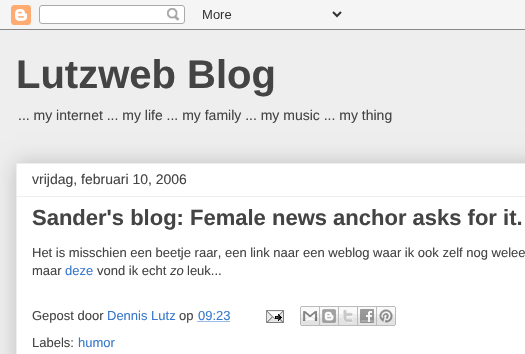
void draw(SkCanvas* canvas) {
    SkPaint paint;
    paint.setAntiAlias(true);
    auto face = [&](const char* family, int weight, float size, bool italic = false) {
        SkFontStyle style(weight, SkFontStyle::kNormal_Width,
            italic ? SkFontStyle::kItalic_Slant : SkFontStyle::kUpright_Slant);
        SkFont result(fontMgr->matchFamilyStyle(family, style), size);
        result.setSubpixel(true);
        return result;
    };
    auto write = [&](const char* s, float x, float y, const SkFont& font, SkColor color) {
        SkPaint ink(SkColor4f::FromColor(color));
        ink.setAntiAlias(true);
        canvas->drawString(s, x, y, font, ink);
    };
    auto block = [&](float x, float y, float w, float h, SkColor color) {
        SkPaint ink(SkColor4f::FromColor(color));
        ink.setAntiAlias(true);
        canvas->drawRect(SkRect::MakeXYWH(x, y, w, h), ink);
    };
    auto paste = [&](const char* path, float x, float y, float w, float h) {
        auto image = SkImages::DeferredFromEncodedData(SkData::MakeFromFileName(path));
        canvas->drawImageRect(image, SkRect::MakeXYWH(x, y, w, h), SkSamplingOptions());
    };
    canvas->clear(SkColorSetRGB(238, 238, 238));
    paste("pic1.png", 0, 0, 525, 30);
    auto kFont1 = face("Liberation Sans", 700, 40);
    write("Lutzweb Blog", 16, 88, kFont1, SkColorSetRGB(68, 68, 68));
    auto kFont2 = face("Liberation Sans", 400, 14);
    write("... my internet ... my life ... my family ... my music ... my thing", 18, 120, kFont2, SkColorSetRGB(68, 68, 68));
    paint.setColor(SkColorSetARGB(51, 0, 0, 0));
    paint.setMaskFilter(SkMaskFilter::MakeBlur(kNormal_SkBlurStyle, 10));
    canvas->drawRect(SkRect::MakeXYWH(16, 163, 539, 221), paint);
    paint.setMaskFilter(nullptr);
    paint.setColor(SK_ColorWHITE);
    canvas->drawRect(SkRect::MakeXYWH(16.5f, 163.5f, 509, 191), paint);
    paint.setStyle(SkPaint::kStroke_Style);
    paint.setStrokeWidth(1);
    paint.setColor(SkColorSetRGB(238, 238, 238));
    canvas->drawRect(SkRect::MakeXYWH(16.5f, 163.5f, 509, 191), paint);
    write("vrijdag, februari 10, 2006", 32, 184, kFont2, SkColorSetRGB(68, 68, 68));
    block(17, 196, 508, 1, SkColorSetRGB(238, 238, 238));
    auto kFont3 = face("Liberation Sans", 700, 22);
    write("Sander's blog: Female news anchor asks for it.", 32, 225, kFont3, SkColorSetRGB(68, 68, 68));
    auto kFont4 = face("Liberation Sans", 400, 13);
    write("Het is misschien een beetje raar, een link naar een weblog waar ik ook zelf nog welee", 32, 257, kFont4, SkColorSetRGB(68, 68, 68));
    write("maar", 32, 275, kFont4, SkColorSetRGB(68, 68, 68));
    write("deze", 65, 275, kFont4, SkColorSetRGB(55, 120, 205));
    write("vond ik echt", 97, 275, kFont4, SkColorSetRGB(68, 68, 68));
    auto kFont5 = face("Liberation Sans", 400, 13, true);
    write("zo", 170, 275, kFont5, SkColorSetRGB(68, 68, 68));
    write("leuk...", 187, 275, kFont4, SkColorSetRGB(68, 68, 68));
    write("Gepost door", 32, 320, kFont4, SkColorSetRGB(68, 68, 68));
    write("Dennis Lutz", 107, 320, kFont4, SkColorSetRGB(55, 120, 205));
    write("op", 179, 320, kFont4, SkColorSetRGB(68, 68, 68));
    paint.setColor(SkColorSetRGB(55, 120, 205));
    paint.setPathEffect(SkDashPathEffect::Make({{1, 1}}, 0));
    canvas->drawPath(SkPathBuilder().moveTo(197.5f, 321.5f).lineTo(230, 321.5f).detach(), paint);
    paint.setPathEffect(nullptr);
    write("09:23", 198, 320, kFont4, SkColorSetRGB(55, 120, 205));
    paste("pic2.png", 266, 310, 18, 13);
    paste("pic3.png", 300, 306, 20, 20);
    paste("pic4.png", 320, 306, 19, 20);
    paste("pic5.png", 339, 306, 19, 20);
    paste("pic6.png", 358, 306, 19, 20);
    paste("pic7.png", 377, 306, 19, 20);
    write("Labels:", 32, 347, kFont4, SkColorSetRGB(68, 68, 68));
    write("humor", 78, 347, kFont4, SkColorSetRGB(55, 120, 205));
}
